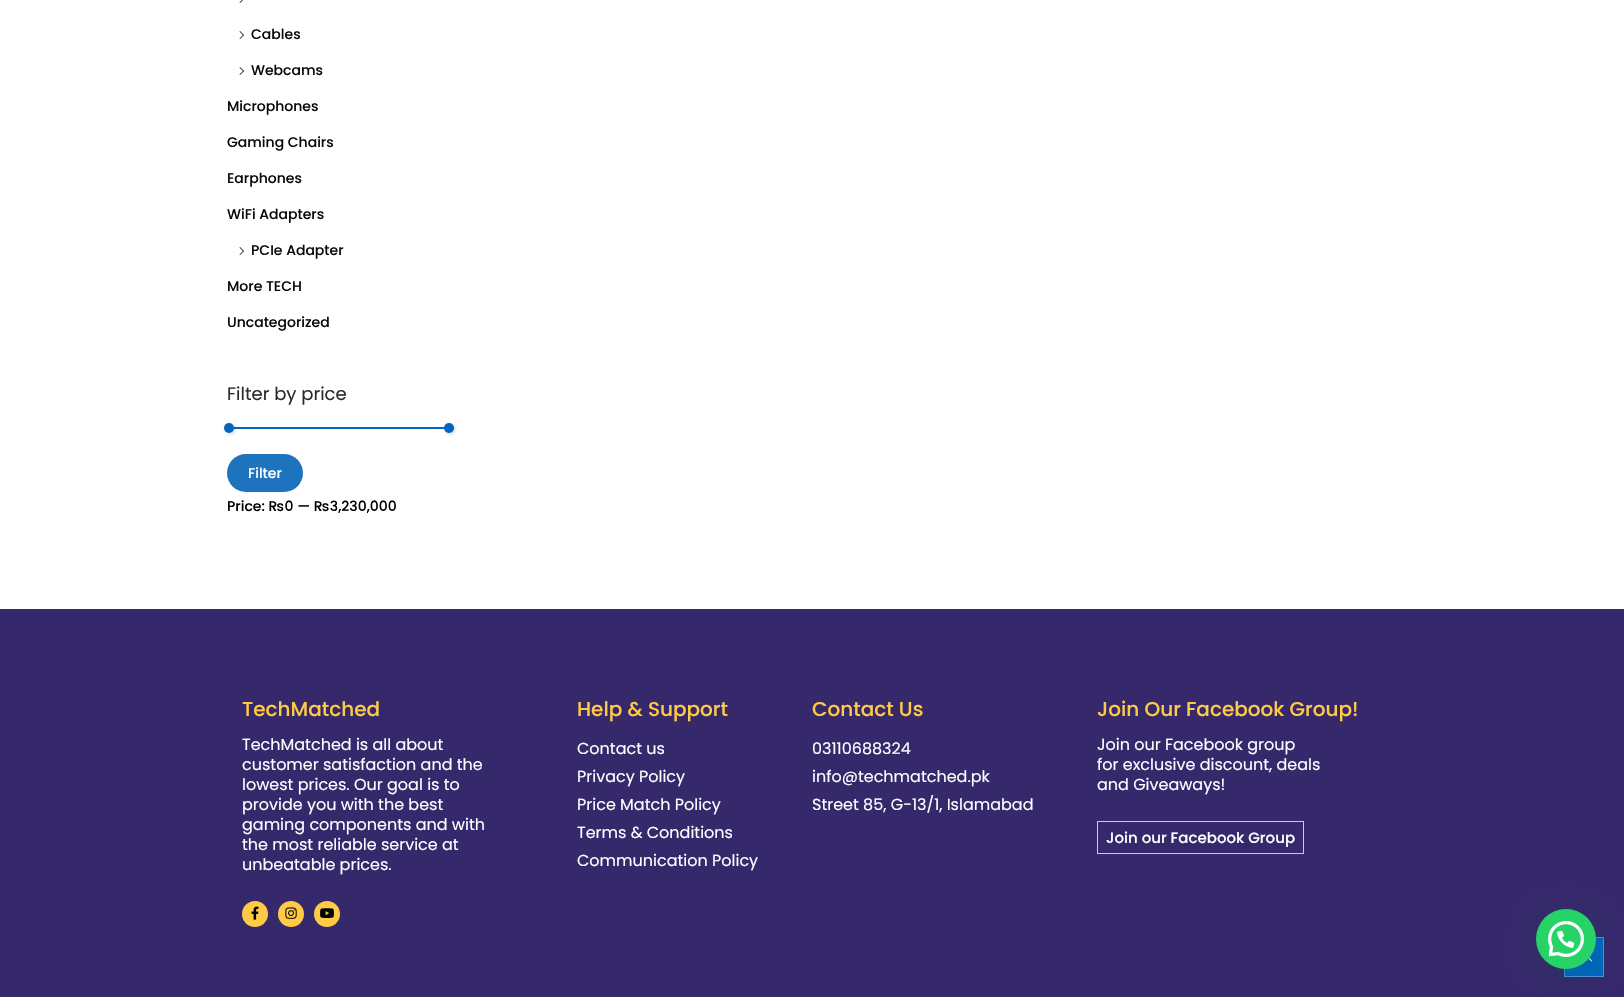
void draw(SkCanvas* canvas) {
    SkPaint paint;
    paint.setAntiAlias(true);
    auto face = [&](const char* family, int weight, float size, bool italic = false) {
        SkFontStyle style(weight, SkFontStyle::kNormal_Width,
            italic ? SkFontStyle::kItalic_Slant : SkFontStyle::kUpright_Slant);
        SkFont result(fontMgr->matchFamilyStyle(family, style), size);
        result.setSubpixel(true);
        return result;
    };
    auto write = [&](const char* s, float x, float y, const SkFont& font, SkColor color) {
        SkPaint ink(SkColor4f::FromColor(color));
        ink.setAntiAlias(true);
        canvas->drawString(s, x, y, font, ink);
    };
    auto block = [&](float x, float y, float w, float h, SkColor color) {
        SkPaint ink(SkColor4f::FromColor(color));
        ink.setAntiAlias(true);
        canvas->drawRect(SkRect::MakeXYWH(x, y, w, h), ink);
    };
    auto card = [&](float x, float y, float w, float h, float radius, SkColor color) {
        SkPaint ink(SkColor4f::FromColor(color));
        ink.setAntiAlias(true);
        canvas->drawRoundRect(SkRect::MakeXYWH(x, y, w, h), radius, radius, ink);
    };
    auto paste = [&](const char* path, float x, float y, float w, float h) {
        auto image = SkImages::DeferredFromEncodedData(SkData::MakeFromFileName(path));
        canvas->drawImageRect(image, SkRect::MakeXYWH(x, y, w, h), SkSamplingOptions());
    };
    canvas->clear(SK_ColorWHITE);
    paint.setColor(SK_ColorBLACK);
    canvas->drawPath(SkPathBuilder().moveTo(243.5f, -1.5f).lineTo(244, -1).lineTo(240, 3).lineTo(239.5f, 2.5f).close().moveTo(240, 31).lineTo(244, 35).lineTo(243.5f, 35.5f).lineTo(239.5f, 31.5f).close().detach(), paint);
    canvas->drawPath(SkPathBuilder().moveTo(243.5f, 34.5f).lineTo(244, 35).lineTo(240, 39).lineTo(239.5f, 38.5f).close().moveTo(240, 67).lineTo(244, 71).lineTo(243.5f, 71.5f).lineTo(239.5f, 67.5f).close().detach(), paint);
    auto kFont1 = face("Poppins", 500, 14);
    write("Cables", 251, 39, kFont1, SkColorSetRGB(10, 10, 10));
    canvas->drawPath(SkPathBuilder().moveTo(243.5f, 70.5f).lineTo(244, 71).lineTo(240, 75).lineTo(239.5f, 74.5f).close().detach(), paint);
    write("Webcams", 251, 75, kFont1, SkColorSetRGB(10, 10, 10));
    write("Microphones", 227, 111, kFont1, SkColorSetRGB(10, 10, 10));
    write("Gaming Chairs", 227, 147, kFont1, SkColorSetRGB(10, 10, 10));
    write("Earphones", 227, 183, kFont1, SkColorSetRGB(10, 10, 10));
    write("WiFi Adapters", 227, 219, kFont1, SkColorSetRGB(10, 10, 10));
    canvas->drawPath(SkPathBuilder().moveTo(240, 247).lineTo(244, 251).lineTo(243.5f, 251.5f).lineTo(239.5f, 247.5f).close().detach(), paint);
    canvas->drawPath(SkPathBuilder().moveTo(243.5f, 250.5f).lineTo(244, 251).lineTo(240, 255).lineTo(239.5f, 254.5f).close().detach(), paint);
    write("PCIe Adapter", 251, 255, kFont1, SkColorSetRGB(10, 10, 10));
    write("More TECH", 227, 291, kFont1, SkColorSetRGB(10, 10, 10));
    write("Uncategorized", 227, 327, kFont1, SkColorSetRGB(10, 10, 10));
    auto kFont2 = face("Poppins", 400, 18);
    write("Filter by price", 227, 400, kFont2, SkColorSetRGB(43, 43, 43));
    block(234, 427, 220, 2, SkColorSetRGB(0, 102, 191));
    paint.setColor(SkColorSetARGB(51, 0, 0, 0));
    paint.setMaskFilter(SkMaskFilter::MakeBlur(kNormal_SkBlurStyle, 1.5f));
    canvas->drawRoundRect(SkRect::MakeXYWH(225, 424, 10, 10), 5, 5, paint);
    paint.setMaskFilter(nullptr);
    paint.setColor(SkColorSetRGB(0, 102, 191));
    canvas->drawCircle(229, 428, 5, paint);
    paint.setColor(SkColorSetARGB(51, 0, 0, 0));
    paint.setMaskFilter(SkMaskFilter::MakeBlur(kNormal_SkBlurStyle, 1.5f));
    canvas->drawRoundRect(SkRect::MakeXYWH(445, 424, 10, 10), 5, 5, paint);
    paint.setMaskFilter(nullptr);
    paint.setColor(SkColorSetRGB(0, 102, 191));
    canvas->drawCircle(449, 428, 5, paint);
    card(227, 454, 76, 38, 19, SkColorSetRGB(30, 115, 190));
    write("Filter", 248, 478, kFont1, SK_ColorWHITE);
    write("Price: ₨0 — ₨3,230,000", 227, 511, kFont1, SK_ColorBLACK);
    block(0, 609, 1624, 388, SkColorSetRGB(53, 40, 107));
    auto kFont3 = face("Poppins", 500, 20);
    write("TechMatched", 242, 716, kFont3, SkColorSetRGB(255, 203, 71));
    auto kFont4 = face("Poppins", 400, 16);
    write("TechMatched is all about", 242, 750, kFont4, SK_ColorWHITE);
    write("customer satisfaction and the", 242, 770, kFont4, SK_ColorWHITE);
    write("lowest prices. Our goal is to", 242, 790, kFont4, SK_ColorWHITE);
    write("provide you with the best", 242, 810, kFont4, SK_ColorWHITE);
    write("gaming components and with", 242, 830, kFont4, SK_ColorWHITE);
    write("the most reliable service at", 242, 850, kFont4, SK_ColorWHITE);
    write("unbeatable prices.", 242, 870, kFont4, SK_ColorWHITE);
    paint.setColor(SkColorSetRGB(255, 203, 71));
    canvas->drawCircle(255, 914, 13, paint);
    paste("pic1.png", 251, 906, 8, 14);
    canvas->drawCircle(291, 914, 13, paint);
    paste("pic2.png", 285, 907, 12, 12);
    canvas->drawCircle(327, 914, 13, paint);
    paste("pic3.png", 320, 908, 14, 10);
    write("Help & Support", 577, 716, kFont3, SkColorSetRGB(255, 203, 71));
    write("Contact us", 577, 754, kFont4, SK_ColorWHITE);
    write("Privacy Policy", 577, 782, kFont4, SK_ColorWHITE);
    write("Price Match Policy", 577, 810, kFont4, SK_ColorWHITE);
    write("Terms & Conditions", 577, 838, kFont4, SK_ColorWHITE);
    write("Communication Policy", 577, 866, kFont4, SK_ColorWHITE);
    write("Contact Us", 812, 716, kFont3, SkColorSetRGB(255, 203, 71));
    write("03110688324", 812, 754, kFont4, SK_ColorWHITE);
    write("info@techmatched.pk", 812, 782, kFont4, SK_ColorWHITE);
    write("Street 85, G-13/1, Islamabad", 812, 810, kFont4, SK_ColorWHITE);
    write("Join Our Facebook Group!", 1097, 716, kFont3, SkColorSetRGB(255, 203, 71));
    write("Join our Facebook group", 1097, 750, kFont4, SK_ColorWHITE);
    write("for exclusive discount, deals", 1097, 770, kFont4, SK_ColorWHITE);
    write("and Giveaways!", 1097, 790, kFont4, SK_ColorWHITE);
    paint.setStyle(SkPaint::kStroke_Style);
    paint.setStrokeWidth(1);
    canvas->drawRect(SkRect::MakeXYWH(1097.5f, 821.5f, 206, 32), paint);
    auto kFont5 = face("Poppins", 500, 15);
    write("Join our Facebook Group", 1106, 843, kFont5, SK_ColorWHITE);
    paint.setStyle(SkPaint::kFill_Style);
    paint.setColor(SkColorSetRGB(0, 102, 191));
    canvas->drawRect(SkRect::MakeXYWH(1564.5f, 937.5f, 39, 39), paint);
    paint.setStyle(SkPaint::kStroke_Style);
    paint.setColor(SkColorSetRGB(77, 148, 210));
    canvas->drawRect(SkRect::MakeXYWH(1564.5f, 937.5f, 39, 39), paint);
    paste("pic5.png", 1588, 957, 5, 5);
    paint.setStyle(SkPaint::kFill_Style);
    paint.setColor(SkColorSetARGB(61, 7, 94, 84));
    paint.setMaskFilter(SkMaskFilter::MakeBlur(kNormal_SkBlurStyle, 12));
    canvas->drawRoundRect(SkRect::MakeXYWH(1537, 915, 60, 60), 30, 30, paint);
    paint.setMaskFilter(nullptr);
    paint.setColor(SkColorSetRGB(37, 211, 102));
    canvas->drawCircle(1566, 939, 30, paint);
    paste("pic4.png", 1548, 921, 36, 36);
}
